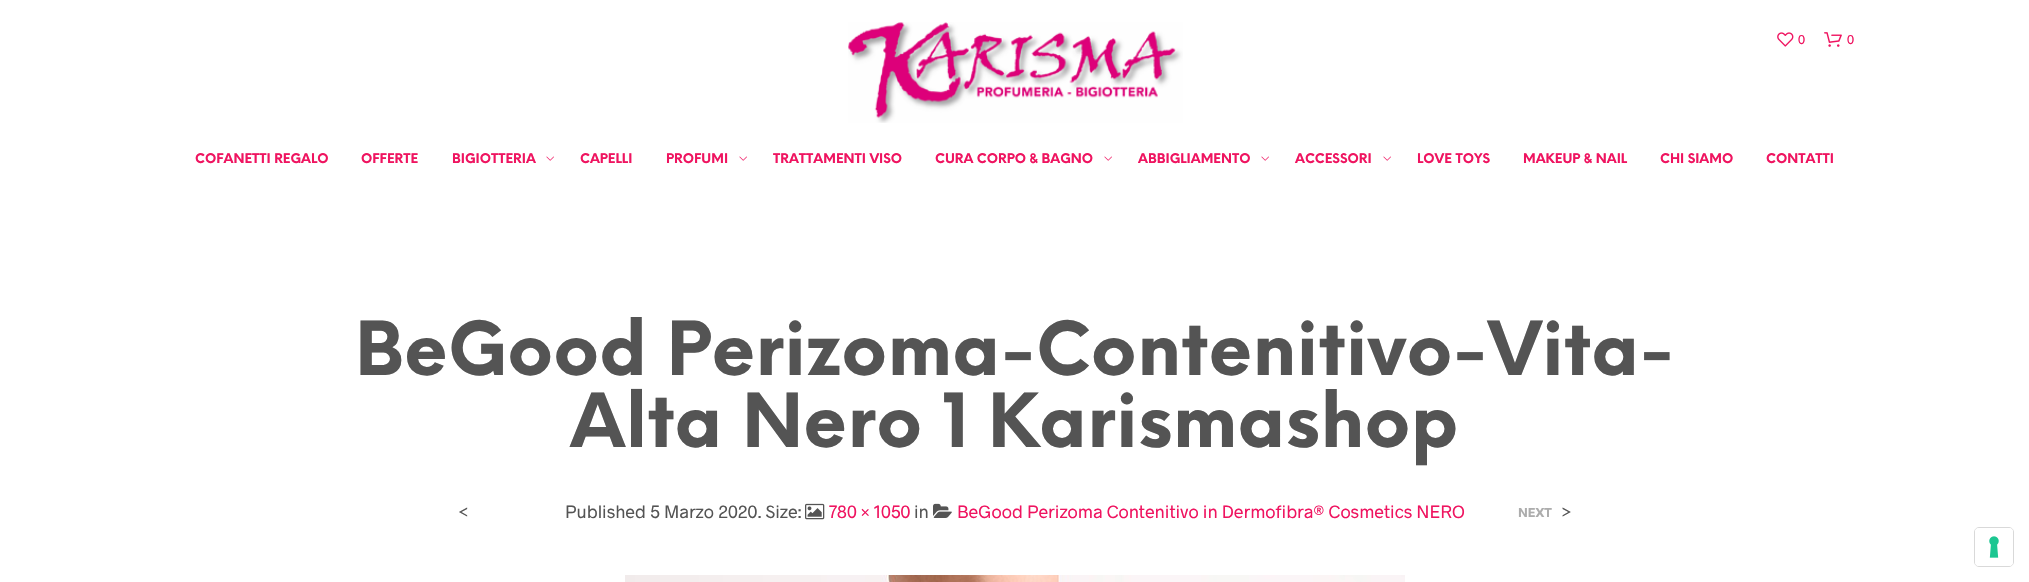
void draw(SkCanvas* canvas) {
    SkPaint paint;
    paint.setAntiAlias(true);
    auto face = [&](const char* family, int weight, float size, bool italic = false) {
        SkFontStyle style(weight, SkFontStyle::kNormal_Width,
            italic ? SkFontStyle::kItalic_Slant : SkFontStyle::kUpright_Slant);
        SkFont result(fontMgr->matchFamilyStyle(family, style), size);
        result.setSubpixel(true);
        return result;
    };
    auto write = [&](const char* s, float x, float y, const SkFont& font, SkColor color) {
        SkPaint ink(SkColor4f::FromColor(color));
        ink.setAntiAlias(true);
        canvas->drawString(s, x, y, font, ink);
    };
    auto card = [&](float x, float y, float w, float h, float radius, SkColor color) {
        SkPaint ink(SkColor4f::FromColor(color));
        ink.setAntiAlias(true);
        canvas->drawRoundRect(SkRect::MakeXYWH(x, y, w, h), radius, radius, ink);
    };
    auto paste = [&](const char* path, float x, float y, float w, float h) {
        auto image = SkImages::DeferredFromEncodedData(SkData::MakeFromFileName(path));
        canvas->drawImageRect(image, SkRect::MakeXYWH(x, y, w, h), SkSamplingOptions());
    };
    canvas->clear(SK_ColorWHITE);
    paste("pic1.png", 848, 22, 335, 101);
    paste("pic2.png", 1777, 32, 17, 15);
    auto kFont1 = face("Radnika", 400, 13);
    write("0", 1798, 44, kFont1, SkColorSetRGB(239, 20, 96));
    paste("pic3.png", 1824, 32, 18, 15);
    write("0", 1847, 44, kFont1, SkColorSetRGB(239, 20, 96));
    auto kFont2 = face("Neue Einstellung", 700, 13);
    write("COFANETTI REGALO", 195, 163, kFont2, SkColorSetRGB(239, 20, 96));
    write("OFFERTE", 361, 163, kFont2, SkColorSetRGB(239, 20, 96));
    write("BIGIOTTERIA", 452, 163, kFont2, SkColorSetRGB(239, 20, 96));
    paste("pic4.png", 546, 156, 8, 5);
    write("CAPELLI", 580, 163, kFont2, SkColorSetRGB(239, 20, 96));
    write("PROFUMI", 666, 163, kFont2, SkColorSetRGB(239, 20, 96));
    paste("pic4.png", 739, 156, 8, 5);
    write("TRATTAMENTI VISO", 773, 163, kFont2, SkColorSetRGB(239, 20, 96));
    write("CURA CORPO & BAGNO", 935, 163, kFont2, SkColorSetRGB(239, 20, 96));
    paste("pic4.png", 1104, 156, 8, 5);
    write("ABBIGLIAMENTO", 1138, 163, kFont2, SkColorSetRGB(239, 20, 96));
    paste("pic4.png", 1261, 156, 8, 5);
    write("ACCESSORI", 1295, 163, kFont2, SkColorSetRGB(239, 20, 96));
    paste("pic4.png", 1383, 156, 8, 5);
    write("LOVE TOYS", 1417, 163, kFont2, SkColorSetRGB(239, 20, 96));
    write("MAKEUP & NAIL", 1523, 163, kFont2, SkColorSetRGB(239, 20, 96));
    write("CHI SIAMO", 1660, 163, kFont2, SkColorSetRGB(239, 20, 96));
    write("CONTATTI", 1766, 163, kFont2, SkColorSetRGB(239, 20, 96));
    auto kFont3 = face("Neue Einstellung", 700, 72.6f);
    write("BeGood Perizoma-Contenitivo-Vita-", 355, 375, kFont3, SkColorSetRGB(84, 84, 84));
    write("Alta Nero 1 Karismashop", 570, 447, kFont3, SkColorSetRGB(84, 84, 84));
    auto kFont4 = face("Radnika", 400, 18);
    write("Published 5 Marzo 2020. Size:", 565, 518, kFont4, SkColorSetRGB(84, 84, 84));
    paste("pic5.png", 805, 503, 20, 17);
    write("780 × 1050", 829, 518, kFont4, SkColorSetRGB(239, 20, 96));
    write("in", 914, 518, kFont4, SkColorSetRGB(84, 84, 84));
    paste("pic6.png", 933, 503, 19, 15);
    write("BeGood Perizoma Contenitivo in Dermofibra® Cosmetics NERO", 957, 518, kFont4, SkColorSetRGB(239, 20, 96));
    write("<", 458, 518, kFont4, SkColorSetRGB(84, 84, 84));
    auto kFont5 = face("Radnika", 700, 13);
    write("NEXT", 1518, 517, kFont5, SkColorSetRGB(173, 173, 173));
    write(">", 1561, 518, kFont4, SkColorSetRGB(84, 84, 84));
    paste("pic7.png", 625, 575, 780, 7);
    paint.setStyle(SkPaint::kStroke_Style);
    paint.setStrokeWidth(1);
    paint.setColor(SkColorSetRGB(217, 217, 217));
    canvas->drawRoundRect(SkRect::MakeXYWH(1974.5f, 527.5f, 39, 39), 4.5f, 4.5f, paint);
    card(1975, 528, 38, 38, 4, SK_ColorWHITE);
    paste("pic8.png", 1989, 536, 10, 22);
}
